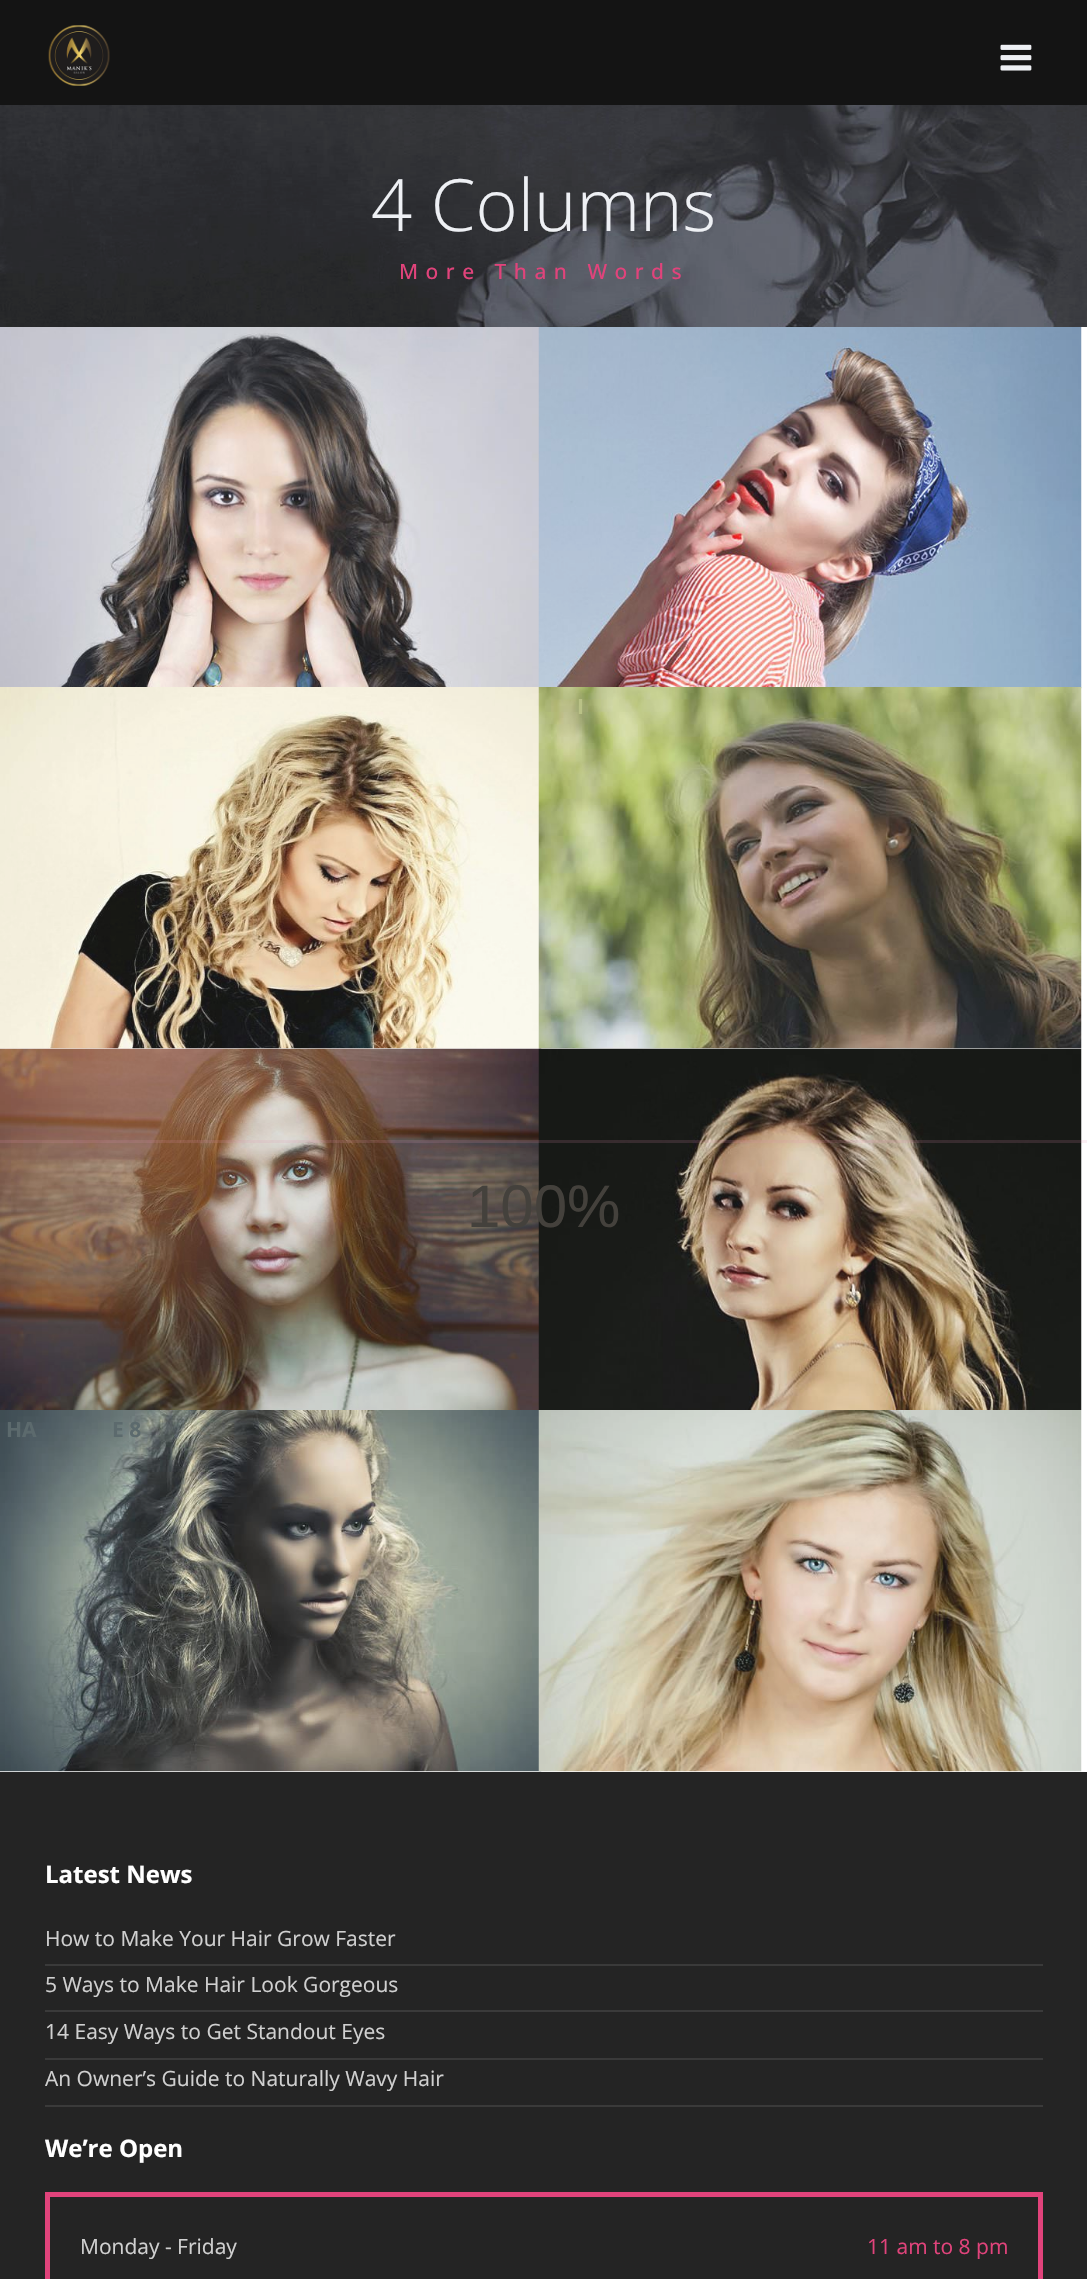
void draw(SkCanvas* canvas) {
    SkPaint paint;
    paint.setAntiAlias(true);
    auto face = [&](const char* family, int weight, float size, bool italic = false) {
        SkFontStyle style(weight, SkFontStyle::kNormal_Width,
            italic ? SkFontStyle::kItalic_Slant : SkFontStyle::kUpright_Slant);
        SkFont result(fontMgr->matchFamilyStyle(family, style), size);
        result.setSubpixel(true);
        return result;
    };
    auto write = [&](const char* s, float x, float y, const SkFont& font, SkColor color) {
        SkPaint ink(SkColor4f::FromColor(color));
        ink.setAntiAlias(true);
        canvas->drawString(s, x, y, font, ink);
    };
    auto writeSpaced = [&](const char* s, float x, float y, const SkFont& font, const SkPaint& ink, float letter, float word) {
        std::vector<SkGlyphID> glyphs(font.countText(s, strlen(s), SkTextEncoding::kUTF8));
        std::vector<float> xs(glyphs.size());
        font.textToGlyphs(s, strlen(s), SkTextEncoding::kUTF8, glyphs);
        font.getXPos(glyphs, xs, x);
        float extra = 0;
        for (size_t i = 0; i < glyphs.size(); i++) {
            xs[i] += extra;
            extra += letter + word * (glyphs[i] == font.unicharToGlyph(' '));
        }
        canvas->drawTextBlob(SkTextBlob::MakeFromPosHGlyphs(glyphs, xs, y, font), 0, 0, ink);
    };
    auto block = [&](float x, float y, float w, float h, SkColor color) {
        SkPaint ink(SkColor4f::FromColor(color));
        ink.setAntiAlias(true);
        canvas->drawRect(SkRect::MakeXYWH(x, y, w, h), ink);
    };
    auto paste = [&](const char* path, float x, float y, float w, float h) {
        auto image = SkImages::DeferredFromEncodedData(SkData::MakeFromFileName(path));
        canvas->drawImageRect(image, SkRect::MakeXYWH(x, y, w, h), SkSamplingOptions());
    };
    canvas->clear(SK_ColorWHITE);
    block(0, 0, 1087, 105, SkColorSetRGB(20, 20, 20));
    paste("pic1.png", 48, 25, 62, 61);
    paste("pic2.png", 1000, 44, 32, 27);
    paste("pic3.png", 0, 105, 1087, 222);
    auto kFont1 = face("Open Sans", 300, 72);
    write("4 Columns", 371, 231, kFont1, SkColorSetRGB(238, 240, 244));
    auto kFont2 = face("Open Sans", 500, 21);
    paint.setColor(SkColorSetRGB(225, 67, 123));
    writeSpaced("More Than Words", 399, 279, kFont2, paint, 7.5f, 0);
    paste("pic4.png", 0, 327, 539, 360);
    paste("pic5.png", 538, 327, 544, 362);
    paste("pic6.png", 0, 687, 542, 362);
    paste("pic7.png", 538, 687, 544, 362);
    auto kFont3 = face("Open Sans", 700, 21);
    write("I", 577, 714, kFont3, SkColorSetRGB(185, 193, 134));
    paste("pic8.png", 0, 1048, 542, 362);
    paste("pic9.png", 538, 1048, 544, 362);
    paste("pic10.png", 0, 1410, 542, 362);
    write("HA", 6, 1437, kFont3, SkColorSetRGB(92, 106, 109));
    write("E 8", 112, 1437, kFont3, SkColorSetRGB(92, 106, 109));
    paste("pic11.png", 538, 1410, 544, 362);
    block(0, 1772, 1087, 507, SkColorSetRGB(36, 36, 36));
    auto kFont4 = face("Open Sans", 700, 24);
    write("Latest News", 45, 1883, kFont4, SK_ColorWHITE);
    block(45, 1964, 998, 2, SkColorSetRGB(58, 58, 58));
    auto kFont5 = face("Open Sans", 400, 21);
    write("How to Make Your Hair Grow Faster", 45, 1946, kFont5, SkColorSetRGB(208, 208, 208));
    block(45, 2010, 998, 2, SkColorSetRGB(58, 58, 58));
    write("5 Ways to Make Hair Look Gorgeous", 45, 1992, kFont5, SkColorSetRGB(208, 208, 208));
    block(45, 2058, 998, 2, SkColorSetRGB(58, 58, 58));
    write("14 Easy Ways to Get Standout Eyes", 45, 2039, kFont5, SkColorSetRGB(208, 208, 208));
    block(45, 2105, 998, 2, SkColorSetRGB(58, 58, 58));
    write("An Owner’s Guide to Naturally Wavy Hair", 45, 2086, kFont5, SkColorSetRGB(208, 208, 208));
    write("We’re Open", 45, 2157, kFont4, SK_ColorWHITE);
    paint.setStyle(SkPaint::kStroke_Style);
    paint.setStrokeWidth(5);
    canvas->drawRect(SkRect::MakeXYWH(47.5f, 2194.5f, 993, 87), paint);
    write("Monday - Friday", 80, 2254, kFont5, SkColorSetRGB(208, 208, 208));
    write("11 am to 8 pm", 867, 2254, kFont5, SkColorSetRGB(225, 67, 123));
    block(0, 1140, 1087, 3, SkColorSetARGB(20, 238, 238, 238));
    block(0, 1140, 1087, 3, SkColorSetARGB(20, 222, 51, 112));
    auto kFont6 = face("Liberation Sans", 400, 60);
    write("100%", 467, 1227, kFont6, SkColorSetRGB(68, 65, 60));
}
